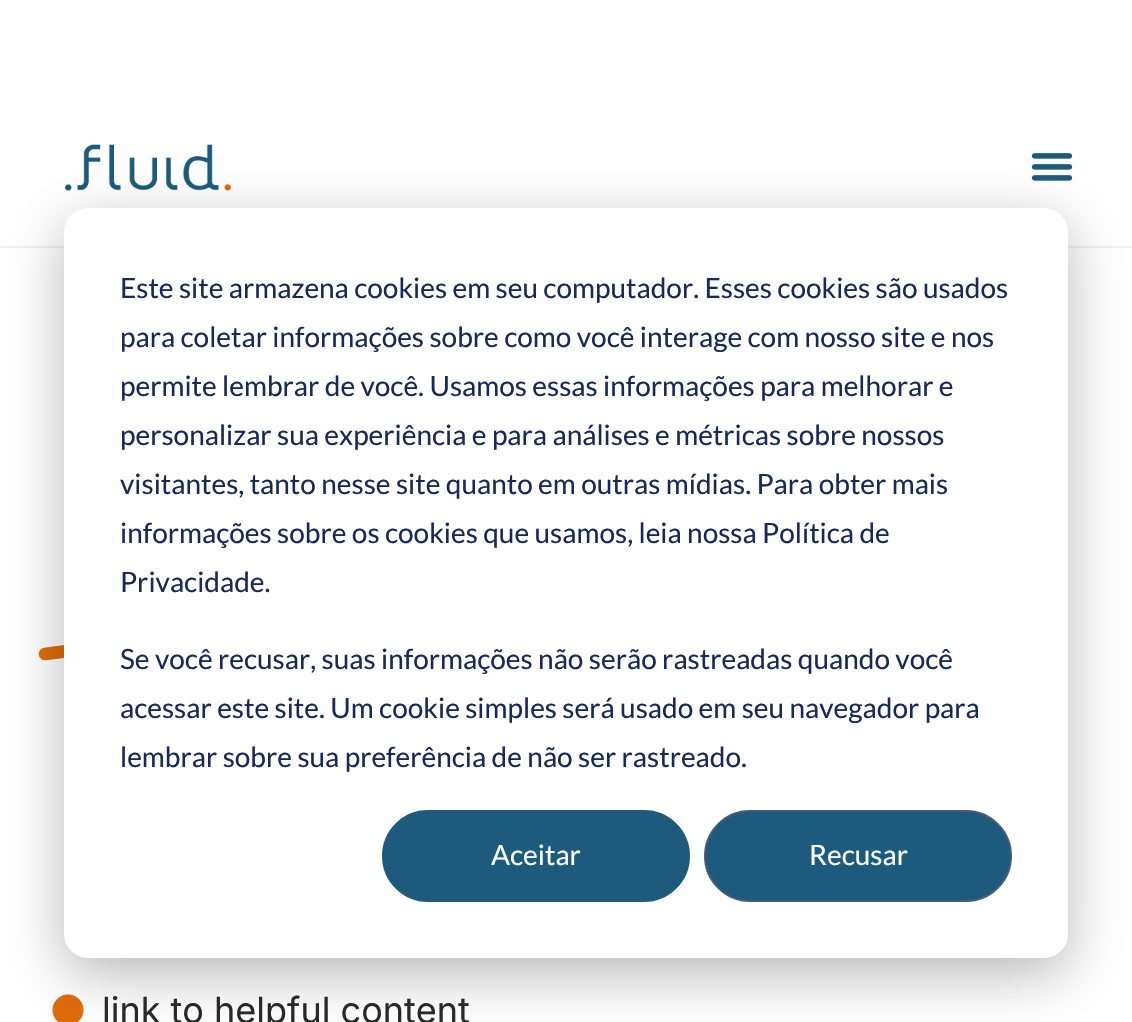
void draw(SkCanvas* canvas) {
    SkPaint paint;
    paint.setAntiAlias(true);
    auto face = [&](const char* family, int weight, float size, bool italic = false) {
        SkFontStyle style(weight, SkFontStyle::kNormal_Width,
            italic ? SkFontStyle::kItalic_Slant : SkFontStyle::kUpright_Slant);
        SkFont result(fontMgr->matchFamilyStyle(family, style), size);
        result.setSubpixel(true);
        return result;
    };
    auto write = [&](const char* s, float x, float y, const SkFont& font, SkColor color) {
        SkPaint ink(SkColor4f::FromColor(color));
        ink.setAntiAlias(true);
        canvas->drawString(s, x, y, font, ink);
    };
    auto block = [&](float x, float y, float w, float h, SkColor color) {
        SkPaint ink(SkColor4f::FromColor(color));
        ink.setAntiAlias(true);
        canvas->drawRect(SkRect::MakeXYWH(x, y, w, h), ink);
    };
    auto card = [&](float x, float y, float w, float h, float radius, SkColor color) {
        SkPaint ink(SkColor4f::FromColor(color));
        ink.setAntiAlias(true);
        canvas->drawRoundRect(SkRect::MakeXYWH(x, y, w, h), radius, radius, ink);
    };
    auto paste = [&](const char* path, float x, float y, float w, float h) {
        auto image = SkImages::DeferredFromEncodedData(SkData::MakeFromFileName(path));
        canvas->drawImageRect(image, SkRect::MakeXYWH(x, y, w, h), SkSamplingOptions());
    };
    canvas->clear(SK_ColorWHITE);
    block(0, 246, 1132, 2, SkColorSetRGB(241, 241, 241));
    paste("pic1.png", 65, 144, 166, 47);
    paste("pic2.png", 1031, 153, 42, 28);
    paint.setStyle(SkPaint::kStroke_Style);
    paint.setStrokeWidth(12.7f);
    paint.setStrokeCap(SkPaint::kRound_Cap);
    paint.setStrokeJoin(SkPaint::kRound_Join);
    paint.setColor(SkColorSetRGB(224, 108, 10));
    canvas->drawPath(SkPathBuilder().moveTo(45, 654).cubicTo(223, 630.5f, 557.5f, 620.5f, 735, 626.5f).cubicTo(808.5f, 629, 888.5f, 639.5f, 888, 655.5f).detach(), paint);
    paste("pic3.png", 52, 994, 32, 28);
    paint.setStyle(SkPaint::kFill_Style);
    paint.setColor(SkColorSetARGB(71, 0, 0, 0));
    paint.setMaskFilter(SkMaskFilter::MakeBlur(kNormal_SkBlurStyle, 28));
    canvas->drawRoundRect(SkRect::MakeXYWH(64, 224, 1004, 750), 24, 24, paint);
    paint.setMaskFilter(nullptr);
    card(64, 208, 1004, 750, 24, SK_ColorWHITE);
    auto kFont1 = face("Lato", 400, 28);
    write("Este site armazena cookies em seu computador. Esses cookies são usados", 120, 298, kFont1, SkColorSetRGB(21, 41, 90));
    write("para coletar informações sobre como você interage com nosso site e nos", 120, 347, kFont1, SkColorSetRGB(21, 41, 90));
    write("permite lembrar de você. Usamos essas informações para melhorar e", 120, 396, kFont1, SkColorSetRGB(21, 41, 90));
    write("personalizar sua experiência e para análises e métricas sobre nossos", 120, 445, kFont1, SkColorSetRGB(21, 41, 90));
    write("visitantes, tanto nesse site quanto em outras mídias. Para obter mais", 120, 494, kFont1, SkColorSetRGB(21, 41, 90));
    write("informações sobre os cookies que usamos, leia nossa Política de", 120, 543, kFont1, SkColorSetRGB(21, 41, 90));
    write("Privacidade.", 120, 592, kFont1, SkColorSetRGB(21, 41, 90));
    write("Se você recusar, suas informações não serão rastreadas quando você", 120, 669, kFont1, SkColorSetRGB(21, 41, 90));
    write("acessar este site. Um cookie simples será usado em seu navegador para", 120, 718, kFont1, SkColorSetRGB(21, 41, 90));
    write("lembrar sobre sua preferência de não ser rastreado.", 120, 767, kFont1, SkColorSetRGB(21, 41, 90));
    paint.setColor(SkColorSetRGB(29, 91, 126));
    canvas->drawRoundRect(SkRect::MakeXYWH(383, 811, 306, 90), 45, 45, paint);
    paint.setStyle(SkPaint::kStroke_Style);
    paint.setStrokeWidth(2);
    paint.setStrokeCap(SkPaint::kButt_Cap);
    paint.setStrokeJoin(SkPaint::kMiter_Join);
    canvas->drawRoundRect(SkRect::MakeXYWH(383, 811, 306, 90), 45, 45, paint);
    write("Aceitar", 491, 865, kFont1, SK_ColorWHITE);
    paint.setStyle(SkPaint::kFill_Style);
    canvas->drawRoundRect(SkRect::MakeXYWH(705, 811, 306, 90), 45, 45, paint);
    paint.setStyle(SkPaint::kStroke_Style);
    paint.setColor(SkColorSetRGB(66, 91, 118));
    canvas->drawRoundRect(SkRect::MakeXYWH(705, 811, 306, 90), 45, 45, paint);
    write("Recusar", 809, 865, kFont1, SK_ColorWHITE);
    auto kFont2 = face("Inter", 400, 36);
    write("link to helpful content", 102, 1023, kFont2, SkColorSetRGB(41, 41, 41));
}
